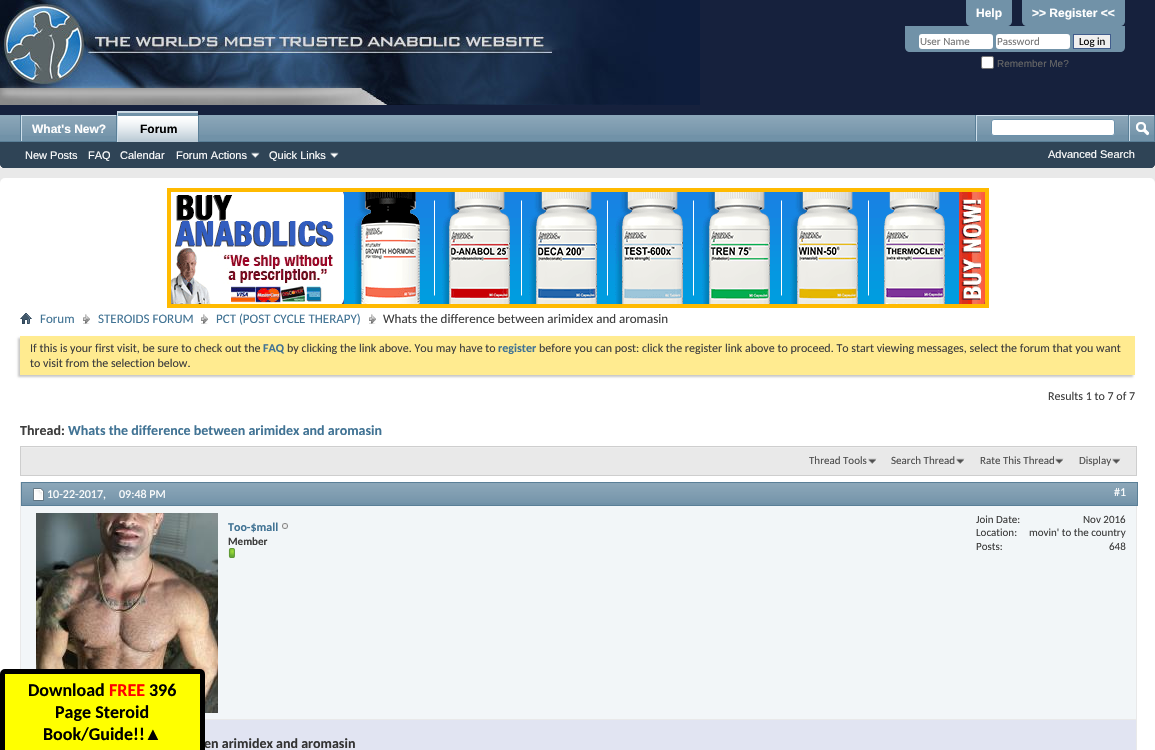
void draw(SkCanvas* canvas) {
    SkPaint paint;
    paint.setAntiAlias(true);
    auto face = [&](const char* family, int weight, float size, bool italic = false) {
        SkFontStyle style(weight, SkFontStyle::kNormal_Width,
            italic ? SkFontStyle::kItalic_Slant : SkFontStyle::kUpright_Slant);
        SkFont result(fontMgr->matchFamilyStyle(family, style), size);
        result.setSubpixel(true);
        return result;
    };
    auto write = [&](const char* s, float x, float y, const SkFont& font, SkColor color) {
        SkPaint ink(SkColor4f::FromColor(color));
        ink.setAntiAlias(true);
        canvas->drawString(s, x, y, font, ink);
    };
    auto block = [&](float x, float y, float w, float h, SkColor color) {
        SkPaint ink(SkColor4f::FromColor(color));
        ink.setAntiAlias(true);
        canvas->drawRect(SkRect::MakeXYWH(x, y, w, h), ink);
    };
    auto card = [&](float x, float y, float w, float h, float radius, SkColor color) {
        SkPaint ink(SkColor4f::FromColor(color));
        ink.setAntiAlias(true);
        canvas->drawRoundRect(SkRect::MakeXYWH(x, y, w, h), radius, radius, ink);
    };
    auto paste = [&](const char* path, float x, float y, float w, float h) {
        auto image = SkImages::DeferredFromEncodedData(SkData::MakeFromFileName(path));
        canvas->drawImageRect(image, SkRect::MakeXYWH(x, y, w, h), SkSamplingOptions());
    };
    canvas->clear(SkColorSetRGB(233, 233, 233));
    paint.setColor(SkColorSetRGB(22, 33, 61));
    canvas->drawPath(SkPathBuilder().moveTo(0, 0).lineTo(1155, 0).lineTo(1155, 163).cubicTo(1155, 166, 1153, 168, 1150, 168).lineTo(5, 168).cubicTo(2, 168, 0, 166, 0, 163).close().detach(), paint);
    paste("pic1.png", 0, 0, 700, 105);
    paint.setColor(SkColorSetRGB(113, 146, 168));
    canvas->drawPath(SkPathBuilder().moveTo(966, 0).lineTo(1012, 0).lineTo(1012, 21).cubicTo(1012, 24, 1010, 26, 1007, 26).lineTo(971, 26).cubicTo(968, 26, 966, 24, 966, 21).close().detach(), paint);
    auto kFont1 = face("Liberation Sans", 700, 12);
    write("Help", 976, 17, kFont1, SK_ColorWHITE);
    canvas->drawPath(SkPathBuilder().moveTo(1022, 0).lineTo(1125, 0).lineTo(1125, 21).cubicTo(1125, 24, 1123, 26, 1120, 26).lineTo(1027, 26).cubicTo(1024, 26, 1022, 24, 1022, 21).close().detach(), paint);
    write(">> Register <<", 1032, 17, kFont1, SK_ColorWHITE);
    canvas->drawPath(SkPathBuilder().moveTo(905, 26).lineTo(1125, 26).lineTo(1125, 47).cubicTo(1125, 50, 1123, 52, 1120, 52).lineTo(910, 52).cubicTo(907, 52, 905, 50, 905, 47).close().detach(), paint);
    card(919, 34, 74, 15, 3, SK_ColorWHITE);
    auto kFont2 = face("Carlito", 400, 11);
    write("User Name", 920, 45, kFont2, SkColorSetRGB(119, 119, 119));
    card(996, 34, 74, 15, 3, SK_ColorWHITE);
    write("Password", 997, 45, kFont2, SkColorSetRGB(119, 119, 119));
    paint.setColor(SkColorSetRGB(239, 239, 239));
    canvas->drawRect(SkRect::MakeXYWH(1073.5f, 34.5f, 37, 14), paint);
    paint.setStyle(SkPaint::kStroke_Style);
    paint.setStrokeWidth(1);
    paint.setColor(SkColorSetRGB(65, 93, 141));
    canvas->drawRect(SkRect::MakeXYWH(1073.5f, 34.5f, 37, 14), paint);
    write("Log in", 1079, 45, kFont2, SK_ColorBLACK);
    paint.setStyle(SkPaint::kFill_Style);
    paint.setColor(SK_ColorWHITE);
    canvas->drawRoundRect(SkRect::MakeXYWH(981.5f, 56.5f, 12, 12), 1.5f, 1.5f, paint);
    paint.setStyle(SkPaint::kStroke_Style);
    paint.setColor(SkColorSetRGB(118, 118, 118));
    canvas->drawRoundRect(SkRect::MakeXYWH(981.5f, 56.5f, 12, 12), 1.5f, 1.5f, paint);
    auto kFont3 = face("Liberation Sans", 400, 10);
    write("Remember Me?", 997, 67, kFont3, SkColorSetRGB(102, 102, 102));
    paint.setStyle(SkPaint::kFill_Style);
    paint.setColor(SkColorSetRGB(47, 68, 86));
    canvas->drawPath(SkPathBuilder().moveTo(0, 115).lineTo(1155, 115).lineTo(1155, 163).cubicTo(1155, 166, 1153, 168, 1150, 168).lineTo(5, 168).cubicTo(2, 168, 0, 166, 0, 163).close().detach(), paint);
    block(0, 115, 1154, 26, SkColorSetRGB(113, 146, 168));
    paste("pic2.png", 0, 115, 1154, 20);
    block(116, 115, 1, 27, SkColorSetRGB(90, 127, 151));
    block(20, 115, 1, 27, SkColorSetRGB(90, 127, 151));
    block(22, 116, 94, 19, SkColorSetRGB(113, 146, 168));
    paste("pic3.png", 22, 116, 94, 20);
    block(21, 115, 95, 1, SkColorSetRGB(206, 223, 235));
    block(21, 115, 1, 27, SkColorSetRGB(206, 223, 235));
    write("What's New?", 32, 133, kFont1, SK_ColorWHITE);
    block(198, 115, 1, 26, SkColorSetRGB(90, 127, 151));
    block(0, 141, 1155, 1, SkColorSetRGB(90, 127, 151));
    block(118, 112, 80, 30, SkColorSetRGB(113, 146, 168));
    paste("pic4.png", 118, 112, 80, 30);
    block(117, 111, 81, 1, SkColorSetRGB(206, 223, 235));
    block(117, 111, 1, 31, SkColorSetRGB(206, 223, 235));
    write("Forum", 140, 133, kFont1, SK_ColorBLACK);
    auto kFont4 = face("Liberation Sans", 400, 11);
    write("New Posts", 25, 159, kFont4, SK_ColorWHITE);
    write("FAQ", 88, 159, kFont4, SK_ColorWHITE);
    write("Calendar", 120, 159, kFont4, SK_ColorWHITE);
    write("Forum Actions", 176, 159, kFont4, SK_ColorWHITE);
    paste("pic5.png", 251, 152, 9, 6);
    write("Quick Links", 269, 159, kFont4, SK_ColorWHITE);
    paste("pic5.png", 330, 152, 9, 6);
    block(975, 115, 1, 26, SkColorSetRGB(90, 127, 151));
    block(976, 115, 152, 1, SkColorSetRGB(206, 223, 235));
    block(976, 115, 1, 26, SkColorSetRGB(206, 223, 235));
    paint.setColor(SK_ColorWHITE);
    canvas->drawRoundRect(SkRect::MakeXYWH(991.5f, 119.5f, 123, 16), 2.5f, 2.5f, paint);
    paint.setStyle(SkPaint::kStroke_Style);
    paint.setColor(SkColorSetRGB(107, 145, 171));
    canvas->drawRoundRect(SkRect::MakeXYWH(991.5f, 119.5f, 123, 16), 2.5f, 2.5f, paint);
    block(1154, 115, 1, 26, SkColorSetRGB(90, 127, 151));
    block(1128, 115, 1, 26, SkColorSetRGB(90, 127, 151));
    block(1129, 115, 25, 1, SkColorSetRGB(206, 223, 235));
    block(1129, 115, 1, 26, SkColorSetRGB(206, 223, 235));
    paste("pic6.png", 1136, 122, 13, 14);
    write("Advanced Search", 1048, 158, kFont4, SK_ColorWHITE);
    card(0, 178, 1155, 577, 5, SK_ColorWHITE);
    paste("pic7.png", 167, 188, 822, 120);
    paste("pic8.png", 20, 313, 12, 11);
    paste("pic9.png", 83, 314, 7, 10);
    auto kFont5 = face("Carlito", 400, 13);
    write("Forum", 40, 323, kFont5, SkColorSetRGB(65, 115, 148));
    paste("pic9.png", 201, 314, 7, 10);
    write("STEROIDS FORUM", 98, 323, kFont5, SkColorSetRGB(65, 115, 148));
    paste("pic9.png", 369, 314, 7, 10);
    write("PCT (POST CYCLE THERAPY)", 216, 323, kFont5, SkColorSetRGB(65, 115, 148));
    write("Whats the difference between arimidex and aromasin", 383, 323, kFont5, SkColorSetRGB(62, 62, 62));
    paint.setStyle(SkPaint::kFill_Style);
    paint.setColor(SkColorSetRGB(200, 200, 200));
    paint.setMaskFilter(SkMaskFilter::MakeBlur(kNormal_SkBlurStyle, 1));
    canvas->drawRect(SkRect::MakeXYWH(18, 338, 1115, 39), paint);
    paint.setMaskFilter(nullptr);
    block(20, 336, 1115, 39, SkColorSetRGB(255, 235, 144));
    auto kFont6 = face("Carlito", 400, 12);
    write("If this is your first visit, be sure to check out the", 30, 352, kFont6, SkColorSetRGB(62, 62, 62));
    auto kFont7 = face("Carlito", 700, 12);
    write("FAQ", 263, 352, kFont7, SkColorSetRGB(65, 115, 148));
    write("by clicking the link above. You may have to", 287, 352, kFont6, SkColorSetRGB(62, 62, 62));
    write("register", 498, 352, kFont7, SkColorSetRGB(65, 115, 148));
    write("before you can post: click the register link above to proceed. To start viewing messages, select the forum that you want", 539, 352, kFont6, SkColorSetRGB(62, 62, 62));
    write("to visit from the selection below.", 30, 367, kFont6, SkColorSetRGB(62, 62, 62));
    write("Results 1 to 7 of 7", 1048, 400, kFont6, SkColorSetRGB(62, 62, 62));
    auto kFont8 = face("Carlito", 700, 14);
    write("Thread:", 20, 435, kFont8, SkColorSetRGB(62, 62, 62));
    write("Whats the difference between arimidex and aromasin", 68, 435, kFont8, SkColorSetRGB(65, 115, 148));
    block(21, 448, 1115, 27, SkColorSetRGB(233, 233, 233));
    block(20, 447, 1117, 1, SkColorSetRGB(237, 237, 237));
    paint.setStyle(SkPaint::kStroke_Style);
    paint.setColor(SkColorSetRGB(206, 206, 206));
    canvas->drawRect(SkRect::MakeXYWH(20.5f, 446.5f, 1116, 29), paint);
    paste("pic10.png", 868, 458, 9, 7);
    write("Thread Tools", 809, 464, kFont2, SkColorSetRGB(78, 78, 78));
    paste("pic10.png", 956, 458, 9, 7);
    write("Search Thread", 891, 464, kFont2, SkColorSetRGB(78, 78, 78));
    paste("pic10.png", 1055, 458, 9, 7);
    write("Rate This Thread", 980, 464, kFont2, SkColorSetRGB(78, 78, 78));
    paste("pic10.png", 1112, 458, 9, 7);
    write("Display", 1079, 464, kFont2, SkColorSetRGB(78, 78, 78));
    paint.setColor(SkColorSetRGB(233, 233, 233));
    canvas->drawRect(SkRect::MakeXYWH(20.5f, 482.5f, 1116, 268), paint);
    block(22, 483, 1115, 22, SkColorSetRGB(113, 146, 168));
    paste("pic11.png", 22, 483, 1115, 20);
    paint.setColor(SkColorSetRGB(90, 127, 151));
    canvas->drawRect(SkRect::MakeXYWH(21.5f, 482.5f, 1116, 23), paint);
    paste("pic12.png", 33, 488, 11, 13);
    write("10-22-2017,", 47, 498, kFont6, SK_ColorWHITE);
    write("09:48 PM", 119, 498, kFont6, SK_ColorWHITE);
    write("#1", 1114, 496, kFont6, SK_ColorWHITE);
    block(21, 506, 1115, 213, SkColorSetRGB(242, 246, 248));
    block(205, 719, 931, 1, SkColorSetRGB(233, 233, 233));
    paste("pic13.png", 36, 513, 182, 200);
    write("Too-$mall", 228, 531, kFont7, SkColorSetRGB(65, 115, 148));
    paste("pic14.png", 282, 523, 6, 6);
    auto kFont9 = face("Carlito", 700, 11);
    write("Member", 228, 545, kFont9, SkColorSetRGB(62, 62, 62));
    paste("pic15.png", 228, 548, 7, 10);
    write("Join Date:", 976, 523, kFont2, SkColorSetRGB(62, 62, 62));
    write("Nov 2016", 1083, 523, kFont2, SkColorSetRGB(62, 62, 62));
    write("Location:", 976, 536, kFont2, SkColorSetRGB(62, 62, 62));
    write("movin' to the country", 1029, 536, kFont2, SkColorSetRGB(62, 62, 62));
    write("Posts:", 976, 550, kFont2, SkColorSetRGB(62, 62, 62));
    write("648", 1109, 550, kFont2, SkColorSetRGB(62, 62, 62));
    block(205, 720, 931, 30, SkColorSetRGB(225, 228, 242));
    write("en arimidex and aromasin", 204, 748, kFont8, SkColorSetRGB(51, 51, 51));
    paint.setStrokeWidth(5);
    paint.setColor(SK_ColorBLACK);
    canvas->drawRoundRect(SkRect::MakeXYWH(2.5f, 671.5f, 200, 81), 2.5f, 2.5f, paint);
    block(5, 674, 195, 76, SkColorSetRGB(255, 255, 0));
    auto kFont10 = face("Carlito", 700, 18);
    write("Download", 28, 696, kFont10, SK_ColorBLACK);
    write("FREE", 109, 696, kFont10, SkColorSetRGB(255, 0, 0));
    write("396", 149, 696, kFont10, SK_ColorBLACK);
    write("Page Steroid", 55, 718, kFont10, SK_ColorBLACK);
    write("Book/Guide!!", 43, 740, kFont10, SK_ColorBLACK);
    auto kFont11 = face("Liberation Sans", 700, 18);
    write("▲", 144, 740, kFont11, SK_ColorBLACK);
}
